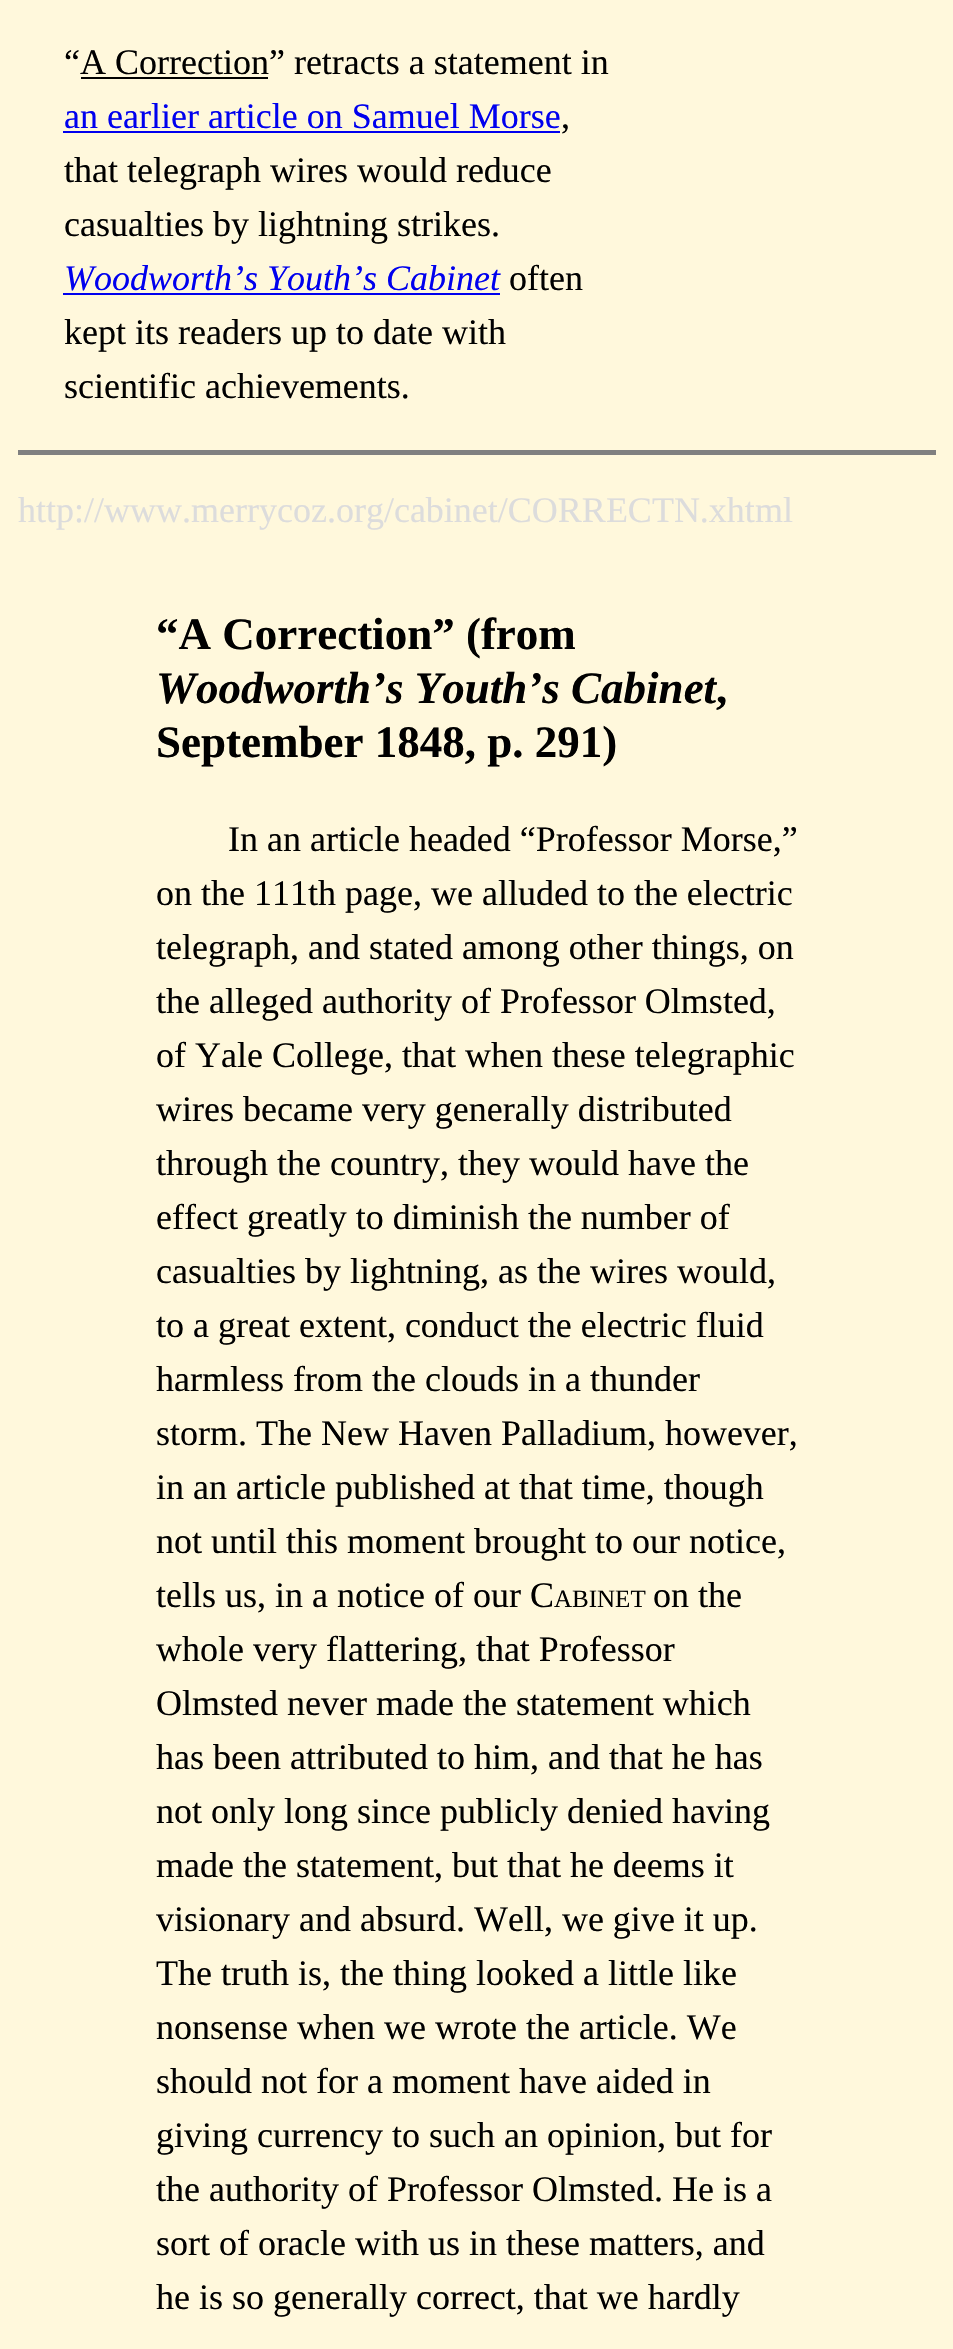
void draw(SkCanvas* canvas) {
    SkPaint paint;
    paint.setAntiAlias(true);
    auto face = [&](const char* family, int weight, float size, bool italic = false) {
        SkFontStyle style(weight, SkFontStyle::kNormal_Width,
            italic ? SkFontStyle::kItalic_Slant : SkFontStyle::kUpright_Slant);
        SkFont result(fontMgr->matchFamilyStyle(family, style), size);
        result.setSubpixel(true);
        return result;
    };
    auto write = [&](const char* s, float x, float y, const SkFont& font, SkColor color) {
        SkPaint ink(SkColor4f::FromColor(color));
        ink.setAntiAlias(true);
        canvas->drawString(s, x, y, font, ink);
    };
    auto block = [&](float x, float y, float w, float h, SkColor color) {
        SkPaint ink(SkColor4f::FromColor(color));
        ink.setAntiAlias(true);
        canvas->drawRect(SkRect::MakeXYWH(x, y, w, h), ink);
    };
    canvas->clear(SkColorSetRGB(255, 248, 220));
    auto kFont1 = face("Liberation Serif", 400, 36);
    write("“A Correction” retracts a statement in", 64, 74, kFont1, SK_ColorBLACK);
    block(81, 77, 187, 2, SK_ColorBLACK);
    write("an earlier article on Samuel Morse", 64, 128, kFont1, SkColorSetRGB(0, 0, 238));
    block(63, 131, 497, 2, SkColorSetRGB(0, 0, 238));
    write(",", 561, 128, kFont1, SK_ColorBLACK);
    write("that telegraph wires would reduce", 64, 182, kFont1, SK_ColorBLACK);
    write("casualties by lightning strikes.", 64, 236, kFont1, SK_ColorBLACK);
    auto kFont2 = face("Liberation Serif", 400, 36, true);
    write("Woodworth’s Youth’s Cabinet", 64, 290, kFont2, SkColorSetRGB(0, 0, 238));
    block(63, 293, 437, 2, SkColorSetRGB(0, 0, 238));
    write("often", 509, 290, kFont1, SK_ColorBLACK);
    write("kept its readers up to date with", 64, 344, kFont1, SK_ColorBLACK);
    write("scientific achievements.", 64, 398, kFont1, SK_ColorBLACK);
    block(18, 450, 918, 5, SkColorSetRGB(128, 128, 128));
    write("http://www.merrycoz.org/cabinet/CORRECTN.xhtml", 18, 522, kFont1, SkColorSetRGB(220, 220, 220));
    auto kFont3 = face("Liberation Serif", 700, 45);
    write("“A Correction” (from", 156, 649, kFont3, SK_ColorBLACK);
    auto kFont4 = face("Liberation Serif", 700, 45, true);
    write("Woodworth’s Youth’s Cabinet", 156, 703, kFont4, SK_ColorBLACK);
    write(",", 716, 703, kFont3, SK_ColorBLACK);
    write("September 1848, p. 291)", 156, 757, kFont3, SK_ColorBLACK);
    write("In an article headed “Professor Morse,”", 228, 851, kFont1, SK_ColorBLACK);
    write("on the 111th page, we alluded to the electric", 156, 905, kFont1, SK_ColorBLACK);
    write("telegraph, and stated among other things, on", 156, 959, kFont1, SK_ColorBLACK);
    write("the alleged authority of Professor Olmsted,", 156, 1013, kFont1, SK_ColorBLACK);
    write("of Yale College, that when these telegraphic", 156, 1067, kFont1, SK_ColorBLACK);
    write("wires became very generally distributed", 156, 1121, kFont1, SK_ColorBLACK);
    write("through the country, they would have the", 156, 1175, kFont1, SK_ColorBLACK);
    write("effect greatly to diminish the number of", 156, 1229, kFont1, SK_ColorBLACK);
    write("casualties by lightning, as the wires would,", 156, 1283, kFont1, SK_ColorBLACK);
    write("to a great extent, conduct the electric fluid", 156, 1337, kFont1, SK_ColorBLACK);
    write("harmless from the clouds in a thunder", 156, 1391, kFont1, SK_ColorBLACK);
    write("storm. The New Haven Palladium, however,", 156, 1445, kFont1, SK_ColorBLACK);
    write("in an article published at that time, though", 156, 1499, kFont1, SK_ColorBLACK);
    write("not until this moment brought to our notice,", 156, 1553, kFont1, SK_ColorBLACK);
    write("tells us, in a notice of our C", 156, 1607, kFont1, SK_ColorBLACK);
    auto kFont5 = face("Liberation Serif", 400, 25);
    write("ABINET", 554, 1607, kFont5, SK_ColorBLACK);
    write("on the", 653, 1607, kFont1, SK_ColorBLACK);
    write("whole very flattering, that Professor", 156, 1661, kFont1, SK_ColorBLACK);
    write("Olmsted never made the statement which", 156, 1715, kFont1, SK_ColorBLACK);
    write("has been attributed to him, and that he has", 156, 1769, kFont1, SK_ColorBLACK);
    write("not only long since publicly denied having", 156, 1823, kFont1, SK_ColorBLACK);
    write("made the statement, but that he deems it", 156, 1877, kFont1, SK_ColorBLACK);
    write("visionary and absurd. Well, we give it up.", 156, 1931, kFont1, SK_ColorBLACK);
    write("The truth is, the thing looked a little like", 156, 1985, kFont1, SK_ColorBLACK);
    write("nonsense when we wrote the article. We", 156, 2039, kFont1, SK_ColorBLACK);
    write("should not for a moment have aided in", 156, 2093, kFont1, SK_ColorBLACK);
    write("giving currency to such an opinion, but for", 156, 2147, kFont1, SK_ColorBLACK);
    write("the authority of Professor Olmsted. He is a", 156, 2201, kFont1, SK_ColorBLACK);
    write("sort of oracle with us in these matters, and", 156, 2255, kFont1, SK_ColorBLACK);
    write("he is so generally correct, that we hardly", 156, 2309, kFont1, SK_ColorBLACK);
}
